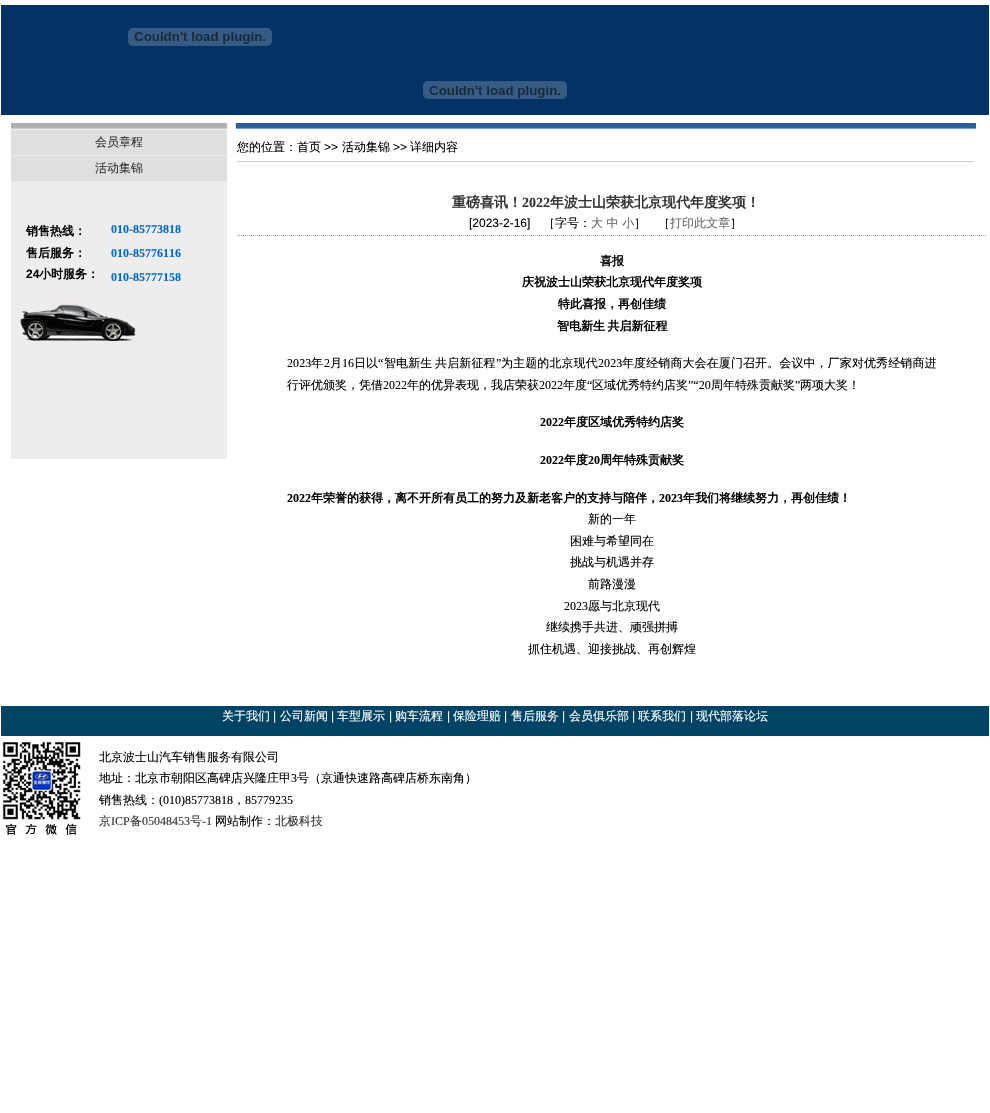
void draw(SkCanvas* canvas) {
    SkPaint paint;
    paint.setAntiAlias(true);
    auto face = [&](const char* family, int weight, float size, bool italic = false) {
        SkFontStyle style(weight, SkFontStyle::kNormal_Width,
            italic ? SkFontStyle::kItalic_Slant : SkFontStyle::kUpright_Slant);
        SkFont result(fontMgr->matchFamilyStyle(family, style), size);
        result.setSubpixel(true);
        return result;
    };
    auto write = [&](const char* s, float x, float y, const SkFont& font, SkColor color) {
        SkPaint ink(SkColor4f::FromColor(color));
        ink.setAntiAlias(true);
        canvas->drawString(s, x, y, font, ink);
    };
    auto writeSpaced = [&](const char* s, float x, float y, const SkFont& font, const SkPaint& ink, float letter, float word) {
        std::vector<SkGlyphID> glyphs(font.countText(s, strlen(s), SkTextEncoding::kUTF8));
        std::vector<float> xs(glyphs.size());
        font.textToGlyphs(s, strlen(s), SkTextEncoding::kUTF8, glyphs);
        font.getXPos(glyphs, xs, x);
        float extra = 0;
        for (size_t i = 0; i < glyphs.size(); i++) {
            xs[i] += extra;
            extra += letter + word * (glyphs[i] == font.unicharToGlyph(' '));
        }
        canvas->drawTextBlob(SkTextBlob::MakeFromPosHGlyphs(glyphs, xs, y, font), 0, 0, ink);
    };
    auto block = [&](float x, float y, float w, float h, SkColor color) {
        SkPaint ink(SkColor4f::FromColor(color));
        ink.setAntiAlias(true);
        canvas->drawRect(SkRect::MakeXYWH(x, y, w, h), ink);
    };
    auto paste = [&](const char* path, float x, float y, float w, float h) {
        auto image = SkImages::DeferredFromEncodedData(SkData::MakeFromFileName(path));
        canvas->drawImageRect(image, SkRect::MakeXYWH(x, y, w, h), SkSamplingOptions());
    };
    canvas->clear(SK_ColorWHITE);
    block(1, 5, 988, 110, SkColorSetRGB(3, 50, 102));
    paste("pic1.png", 128, 28, 144, 18);
    paste("pic2.png", 423, 81, 144, 18);
    paste("pic3.png", 11, 123, 966, 6);
    block(11, 129, 216, 330, SkColorSetRGB(238, 236, 237));
    block(11, 130, 216, 25, SkColorSetRGB(223, 223, 223));
    auto kFont1 = face("WenQuanYi Zen Hei", 500, 12);
    write("会员章程", 95, 146, kFont1, SkColorSetRGB(51, 51, 51));
    block(11, 156, 216, 25, SkColorSetRGB(223, 223, 223));
    write("活动集锦", 95, 172, kFont1, SkColorSetRGB(51, 51, 51));
    auto kFont2 = face("WenQuanYi Zen Hei", 700, 12);
    write("销售热线：", 26, 235, kFont2, SK_ColorBLACK);
    write("售后服务：", 26, 257, kFont2, SK_ColorBLACK);
    auto kFont3 = face("Liberation Sans", 700, 12);
    write("24", 26, 278, kFont3, SK_ColorBLACK);
    write("小时服务：", 39, 278, kFont2, SK_ColorBLACK);
    auto kFont4 = face("Liberation Serif", 700, 12);
    write("010-85773818", 111, 233, kFont4, SkColorSetRGB(0, 107, 204));
    write("010-85776116", 111, 257, kFont4, SkColorSetRGB(0, 107, 204));
    write("010-85777158", 111, 281, kFont4, SkColorSetRGB(0, 107, 204));
    paste("pic4.png", 19, 299, 120, 42);
    block(237, 161, 737, 1, SkColorSetRGB(204, 204, 204));
    write("您的位置：首页", 237, 151, kFont1, SK_ColorBLACK);
    auto kFont5 = face("Liberation Sans", 400, 12);
    write(">>", 324, 151, kFont5, SK_ColorBLACK);
    write("活动集锦", 342, 151, kFont1, SK_ColorBLACK);
    write(">>", 393, 151, kFont5, SK_ColorBLACK);
    write("详细内容", 410, 151, kFont1, SK_ColorBLACK);
    auto kFont6 = face("WenQuanYi Zen Hei", 700, 14);
    write("重磅喜讯！", 452, 207, kFont6, SkColorSetRGB(51, 51, 51));
    auto kFont7 = face("Liberation Serif", 700, 14);
    write("2022", 522, 207, kFont7, SkColorSetRGB(51, 51, 51));
    write("年波士山荣获北京现代年度奖项！", 550, 207, kFont6, SkColorSetRGB(51, 51, 51));
    write("[2023-2-16]", 469, 227, kFont5, SK_ColorBLACK);
    write("［字号：", 543, 227, kFont1, SK_ColorBLACK);
    write("大 中 小", 591, 227, kFont1, SkColorSetRGB(102, 102, 102));
    write("］　［", 634, 227, kFont1, SK_ColorBLACK);
    write("打印此文章", 670, 227, kFont1, SkColorSetRGB(102, 102, 102));
    write("］", 730, 227, kFont1, SK_ColorBLACK);
    paint.setStyle(SkPaint::kStroke_Style);
    paint.setStrokeWidth(1);
    paint.setColor(SkColorSetRGB(153, 153, 153));
    paint.setPathEffect(SkDashPathEffect::Make({{1, 1}}, 0));
    canvas->drawPath(SkPathBuilder().moveTo(237, 235.5f).lineTo(987, 235.5f).detach(), paint);
    paint.setPathEffect(nullptr);
    write("喜报", 600, 265, kFont2, SK_ColorBLACK);
    write("庆祝波士山荣获北京现代年度奖项", 522, 286, kFont2, SK_ColorBLACK);
    write("特此喜报，再创佳绩", 558, 308, kFont2, SK_ColorBLACK);
    paint.setStyle(SkPaint::kFill_Style);
    paint.setColor(SK_ColorBLACK);
    writeSpaced("智电新生 共启新征程", 557, 330, kFont2, paint, 0, -1);
    auto kFont8 = face("Liberation Serif", 400, 12);
    writeSpaced("2023", 287, 367, kFont8, paint, 0.1f, 0);
    writeSpaced("年", 311, 367, kFont1, paint, 0.1f, 0);
    writeSpaced("2", 324, 367, kFont8, paint, 0.1f, 0);
    writeSpaced("月", 330, 367, kFont1, paint, 0.1f, 0);
    writeSpaced("16", 342, 367, kFont8, paint, 0.1f, 0);
    writeSpaced("日以", 354, 367, kFont1, paint, 0.1f, 0);
    writeSpaced("“", 378, 367, kFont8, paint, 0.1f, 0);
    writeSpaced("智电新生 共启新征程", 384, 367, kFont1, paint, 0.1f, -1);
    writeSpaced("”", 496, 367, kFont8, paint, 0.1f, 0);
    writeSpaced("为主题的北京现代", 501, 367, kFont1, paint, 0.1f, 0);
    writeSpaced("2023", 598, 367, kFont8, paint, 0.1f, 0);
    writeSpaced("年度经销商大会在厦门召开。会议中，厂家对优秀经销商进", 622, 367, kFont1, paint, 0.1f, 0);
    write("行评优颁奖，凭借", 287, 389, kFont1, SK_ColorBLACK);
    write("2022", 383, 389, kFont8, SK_ColorBLACK);
    write("年的优异表现，我店荣获", 407, 389, kFont1, SK_ColorBLACK);
    write("2022", 539, 389, kFont8, SK_ColorBLACK);
    write("年度", 563, 389, kFont1, SK_ColorBLACK);
    write("“", 587, 389, kFont8, SK_ColorBLACK);
    write("区域优秀特约店奖", 592, 389, kFont1, SK_ColorBLACK);
    write("”“20", 688, 389, kFont8, SK_ColorBLACK);
    write("周年特殊贡献奖", 711, 389, kFont1, SK_ColorBLACK);
    write("”", 795, 389, kFont8, SK_ColorBLACK);
    write("两项大奖！", 800, 389, kFont1, SK_ColorBLACK);
    write("2022", 540, 426, kFont4, SK_ColorBLACK);
    write("年度区域优秀特约店奖", 564, 426, kFont2, SK_ColorBLACK);
    write("2022", 540, 464, kFont4, SK_ColorBLACK);
    write("年度", 564, 464, kFont2, SK_ColorBLACK);
    write("20", 588, 464, kFont4, SK_ColorBLACK);
    write("周年特殊贡献奖", 600, 464, kFont2, SK_ColorBLACK);
    write("2022", 287, 502, kFont4, SK_ColorBLACK);
    write("年荣誉的获得，离不开所有员工的努力及新老客户的支持与陪伴，", 311, 502, kFont2, SK_ColorBLACK);
    write("2023", 659, 502, kFont4, SK_ColorBLACK);
    write("年我们将继续努力，再创佳绩！", 683, 502, kFont2, SK_ColorBLACK);
    write("新的一年", 588, 523, kFont1, SK_ColorBLACK);
    write("困难与希望同在", 570, 545, kFont1, SK_ColorBLACK);
    write("挑战与机遇并存", 570, 566, kFont1, SK_ColorBLACK);
    write("前路漫漫", 588, 588, kFont1, SK_ColorBLACK);
    write("2023", 564, 610, kFont8, SK_ColorBLACK);
    write("愿与北京现代", 588, 610, kFont1, SK_ColorBLACK);
    write("继续携手共进、顽强拼搏", 546, 631, kFont1, SK_ColorBLACK);
    write("抓住机遇、迎接挑战、再创辉煌", 528, 653, kFont1, SK_ColorBLACK);
    block(1, 706, 988, 30, SkColorSetRGB(0, 67, 100));
    write("关于我们", 222, 720, kFont1, SK_ColorWHITE);
    write("|", 273, 720, kFont5, SK_ColorWHITE);
    write("公司新闻", 280, 720, kFont1, SK_ColorWHITE);
    write("|", 331, 720, kFont5, SK_ColorWHITE);
    write("车型展示", 337, 720, kFont1, SK_ColorWHITE);
    write("|", 389, 720, kFont5, SK_ColorWHITE);
    write("购车流程", 395, 720, kFont1, SK_ColorWHITE);
    write("|", 447, 720, kFont5, SK_ColorWHITE);
    write("保险理赔", 453, 720, kFont1, SK_ColorWHITE);
    write("|", 504, 720, kFont5, SK_ColorWHITE);
    write("售后服务", 511, 720, kFont1, SK_ColorWHITE);
    write("|", 562, 720, kFont5, SK_ColorWHITE);
    write("会员俱乐部", 569, 720, kFont1, SK_ColorWHITE);
    write("|", 632, 720, kFont5, SK_ColorWHITE);
    write("联系我们", 638, 720, kFont1, SK_ColorWHITE);
    write("|", 690, 720, kFont5, SK_ColorWHITE);
    write("现代部落论坛", 696, 720, kFont1, SK_ColorWHITE);
    paste("pic5.png", 1, 741, 80, 95);
    write("北京波士山汽车销售服务有限公司", 99, 761, kFont1, SK_ColorBLACK);
    write("地址：北京市朝阳区高碑店兴隆庄甲", 99, 782, kFont1, SK_ColorBLACK);
    write("3", 291, 782, kFont8, SK_ColorBLACK);
    write("号（京通快速路高碑店桥东南角）", 297, 782, kFont1, SK_ColorBLACK);
    write("销售热线：", 99, 804, kFont1, SK_ColorBLACK);
    write("(010)85773818", 159, 804, kFont8, SK_ColorBLACK);
    write("，", 233, 804, kFont1, SK_ColorBLACK);
    write("85779235", 245, 804, kFont8, SK_ColorBLACK);
    write("京", 99, 825, kFont1, SkColorSetRGB(51, 51, 51));
    write("ICP", 111, 825, kFont8, SkColorSetRGB(51, 51, 51));
    write("备", 130, 825, kFont1, SkColorSetRGB(51, 51, 51));
    write("05048453", 142, 825, kFont8, SkColorSetRGB(51, 51, 51));
    write("号", 190, 825, kFont1, SkColorSetRGB(51, 51, 51));
    write("-1", 202, 825, kFont8, SkColorSetRGB(51, 51, 51));
    write("网站制作：", 215, 825, kFont1, SK_ColorBLACK);
    write("北极科技", 275, 825, kFont1, SkColorSetRGB(51, 51, 51));
}
